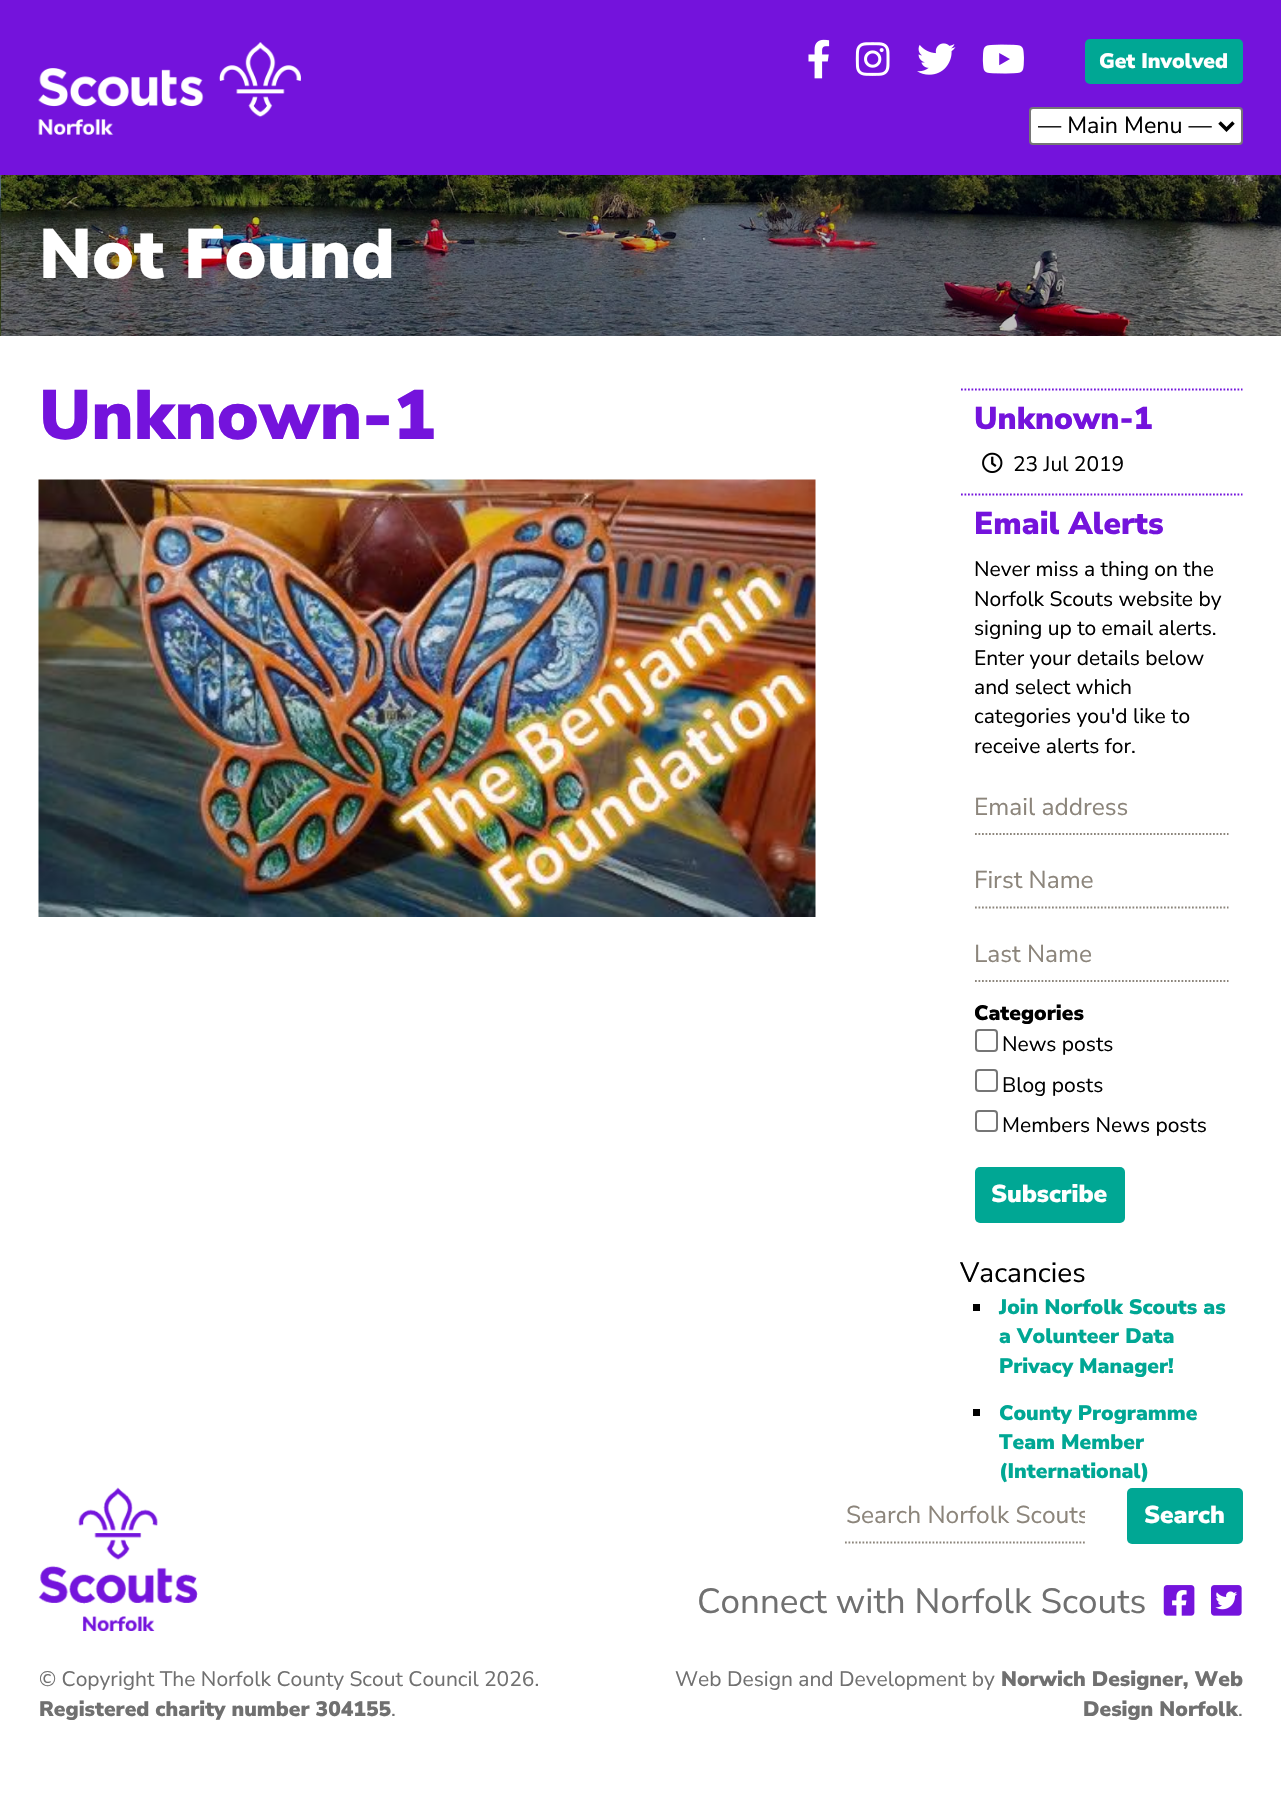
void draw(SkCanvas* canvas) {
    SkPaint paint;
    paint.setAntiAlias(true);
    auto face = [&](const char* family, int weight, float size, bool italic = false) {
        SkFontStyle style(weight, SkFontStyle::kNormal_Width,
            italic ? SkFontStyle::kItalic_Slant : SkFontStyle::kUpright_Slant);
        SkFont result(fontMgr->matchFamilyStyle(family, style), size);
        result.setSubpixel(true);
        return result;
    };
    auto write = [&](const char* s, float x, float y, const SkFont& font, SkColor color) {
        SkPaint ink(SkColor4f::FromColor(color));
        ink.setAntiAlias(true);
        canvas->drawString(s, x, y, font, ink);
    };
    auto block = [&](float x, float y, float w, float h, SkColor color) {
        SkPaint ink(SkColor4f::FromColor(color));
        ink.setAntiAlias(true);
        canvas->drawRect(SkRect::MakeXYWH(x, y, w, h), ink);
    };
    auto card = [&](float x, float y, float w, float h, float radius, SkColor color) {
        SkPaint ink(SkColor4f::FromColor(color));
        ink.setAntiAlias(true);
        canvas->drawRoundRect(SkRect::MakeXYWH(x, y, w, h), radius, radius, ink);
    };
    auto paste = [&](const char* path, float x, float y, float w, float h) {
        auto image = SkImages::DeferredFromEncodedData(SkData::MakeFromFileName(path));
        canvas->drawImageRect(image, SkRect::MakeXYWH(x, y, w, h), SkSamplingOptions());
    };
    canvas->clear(SK_ColorWHITE);
    block(0, 0, 1281, 175, SkColorSetRGB(116, 19, 220));
    paste("pic1.png", 38, 42, 263, 93);
    paste("pic2.png", 808, 39, 22, 40);
    paste("pic3.png", 855, 42, 35, 34);
    paste("pic4.png", 917, 43, 39, 32);
    paste("pic5.png", 982, 44, 42, 30);
    card(1085, 39, 158, 45, 5, SkColorSetRGB(0, 167, 148));
    auto kFont1 = face("Nunito Sans", 900, 21);
    write("Get Involved", 1099, 68, kFont1, SK_ColorWHITE);
    paint.setColor(SK_ColorWHITE);
    canvas->drawRoundRect(SkRect::MakeXYWH(1030, 108, 212, 36), 3, 3, paint);
    paint.setStyle(SkPaint::kStroke_Style);
    paint.setStrokeWidth(2);
    paint.setColor(SkColorSetRGB(118, 118, 118));
    canvas->drawRoundRect(SkRect::MakeXYWH(1030, 108, 212, 36), 3, 3, paint);
    paint.setStrokeWidth(3.5f);
    paint.setColor(SK_ColorBLACK);
    canvas->drawPath(SkPathBuilder().moveTo(1219.5f, 122.5f).lineTo(1226.5f, 129.5f).lineTo(1233.5f, 122.5f).detach(), paint);
    auto kFont2 = face("Nunito Sans", 400, 23.25f);
    write("— Main Menu —", 1038, 133, kFont2, SK_ColorBLACK);
    paste("pic6.png", 0, 175, 1281, 161);
    auto kFont3 = face("Nunito Sans", 900, 70);
    write("Not Found", 39, 278, kFont3, SK_ColorWHITE);
    write("Unknown-1", 39, 439, kFont3, SkColorSetRGB(116, 19, 220));
    paste("pic7.png", 38, 479, 778, 438);
    paint.setStrokeWidth(1.8f);
    paint.setColor(SkColorSetRGB(116, 19, 220));
    paint.setPathEffect(SkDashPathEffect::Make({{1.75f, 1.75f}}, 0));
    canvas->drawPath(SkPathBuilder().moveTo(961, 389.5f).lineTo(1242.5f, 389.5f).detach(), paint);
    paint.setPathEffect(nullptr);
    auto kFont4 = face("Nunito Sans", 900, 31.5f);
    write("Unknown-1", 974, 429, kFont4, SkColorSetRGB(116, 19, 220));
    paste("pic8.png", 982, 452, 21, 21);
    auto kFont5 = face("Nunito Sans", 400, 21);
    write("23 Jul 2019", 1013, 471, kFont5, SK_ColorBLACK);
    paint.setPathEffect(SkDashPathEffect::Make({{1.75f, 1.75f}}, 0));
    canvas->drawPath(SkPathBuilder().moveTo(961, 494.5f).lineTo(1242.5f, 494.5f).detach(), paint);
    paint.setPathEffect(nullptr);
    write("Email Alerts", 974, 534, kFont4, SkColorSetRGB(116, 19, 220));
    write("Never miss a thing on the", 974, 576, kFont5, SK_ColorBLACK);
    write("Norfolk Scouts website by", 974, 606, kFont5, SK_ColorBLACK);
    write("signing up to email alerts.", 974, 635, kFont5, SK_ColorBLACK);
    write("Enter your details below", 974, 665, kFont5, SK_ColorBLACK);
    write("and select which", 974, 694, kFont5, SK_ColorBLACK);
    write("categories you'd like to", 974, 723, kFont5, SK_ColorBLACK);
    write("receive alerts for.", 974, 753, kFont5, SK_ColorBLACK);
    paint.setColor(SkColorSetRGB(140, 133, 123));
    paint.setPathEffect(SkDashPathEffect::Make({{1.75f, 1.75f}}, 0));
    canvas->drawPath(SkPathBuilder().moveTo(975, 834).lineTo(1228.5f, 834).detach(), paint);
    paint.setPathEffect(nullptr);
    auto kFont6 = face("Nunito Sans", 400, 24.5f);
    write("Email address", 974, 815, kFont6, SkColorSetRGB(140, 133, 123));
    paint.setPathEffect(SkDashPathEffect::Make({{1.75f, 1.75f}}, 0));
    canvas->drawPath(SkPathBuilder().moveTo(975, 907.5f).lineTo(1228.5f, 907.5f).detach(), paint);
    paint.setPathEffect(nullptr);
    write("First Name", 974, 888, kFont6, SkColorSetRGB(140, 133, 123));
    paint.setPathEffect(SkDashPathEffect::Make({{1.75f, 1.75f}}, 0));
    canvas->drawPath(SkPathBuilder().moveTo(975, 981).lineTo(1228.5f, 981).detach(), paint);
    paint.setPathEffect(nullptr);
    write("Last Name", 974, 962, kFont6, SkColorSetRGB(140, 133, 123));
    write("Categories", 974, 1020, kFont1, SK_ColorBLACK);
    paint.setStrokeWidth(2);
    paint.setColor(SkColorSetRGB(118, 118, 118));
    canvas->drawRoundRect(SkRect::MakeXYWH(976, 1030, 21, 21), 3, 3, paint);
    write("News posts", 1002, 1051, kFont5, SK_ColorBLACK);
    canvas->drawRoundRect(SkRect::MakeXYWH(976, 1070, 21, 21), 3, 3, paint);
    write("Blog posts", 1002, 1092, kFont5, SK_ColorBLACK);
    canvas->drawRoundRect(SkRect::MakeXYWH(976, 1111, 21, 20), 3, 3, paint);
    write("Members News posts", 1002, 1132, kFont5, SK_ColorBLACK);
    card(975, 1167, 150, 56, 5, SkColorSetRGB(0, 167, 148));
    auto kFont7 = face("Nunito Sans", 900, 24.5f);
    write("Subscribe", 991, 1202, kFont7, SK_ColorWHITE);
    auto kFont8 = face("Nunito Sans", 400, 28);
    write("Vacancies", 960, 1282, kFont8, SK_ColorBLACK);
    block(973, 1304, 7, 7, SK_ColorBLACK);
    write("Join Norfolk Scouts as", 999, 1314, kFont1, SkColorSetRGB(0, 167, 148));
    write("a Volunteer Data", 999, 1343, kFont1, SkColorSetRGB(0, 167, 148));
    write("Privacy Manager!", 999, 1373, kFont1, SkColorSetRGB(0, 167, 148));
    block(973, 1409, 7, 7, SK_ColorBLACK);
    write("County Programme", 999, 1420, kFont1, SkColorSetRGB(0, 167, 148));
    write("Team Member", 999, 1449, kFont1, SkColorSetRGB(0, 167, 148));
    write("(International)", 999, 1478, kFont1, SkColorSetRGB(0, 167, 148));
    paste("pic9.png", 38, 1487, 160, 144);
    paint.setStrokeWidth(1.8f);
    paint.setColor(SkColorSetRGB(140, 133, 123));
    paint.setPathEffect(SkDashPathEffect::Make({{1.75f, 1.75f}}, 0));
    canvas->drawPath(SkPathBuilder().moveTo(845, 1542.5f).lineTo(1085, 1542.5f).detach(), paint);
    paint.setPathEffect(nullptr);
    canvas->save();
    canvas->clipRect(SkRect::MakeXYWH(845, 1498, 240, 33));
    write("Search Norfolk Scouts", 846, 1523, kFont6, SkColorSetRGB(140, 133, 123));
    canvas->restore();
    card(1127, 1488, 116, 56, 5, SkColorSetRGB(0, 167, 148));
    write("Search", 1144, 1523, kFont7, SK_ColorWHITE);
    auto kFont9 = face("Nunito Sans", 400, 35);
    write("Connect with Norfolk Scouts", 697, 1613, kFont9, SkColorSetRGB(112, 112, 112));
    paste("pic10.png", 1163, 1585, 32, 31);
    paste("pic11.png", 1211, 1585, 31, 31);
    write("© Copyright The Norfolk County Scout Council 2026.", 39, 1686, kFont5, SkColorSetRGB(112, 112, 112));
    write("Registered charity number 304155", 39, 1716, kFont1, SkColorSetRGB(112, 112, 112));
    write(".", 391, 1716, kFont5, SkColorSetRGB(112, 112, 112));
    write("Web Design and Development by", 675, 1686, kFont5, SkColorSetRGB(112, 112, 112));
    write("Norwich Designer, Web", 1001, 1686, kFont1, SkColorSetRGB(112, 112, 112));
    write("Design Norfolk", 1083, 1716, kFont1, SkColorSetRGB(112, 112, 112));
    write(".", 1238, 1716, kFont5, SkColorSetRGB(112, 112, 112));
}
